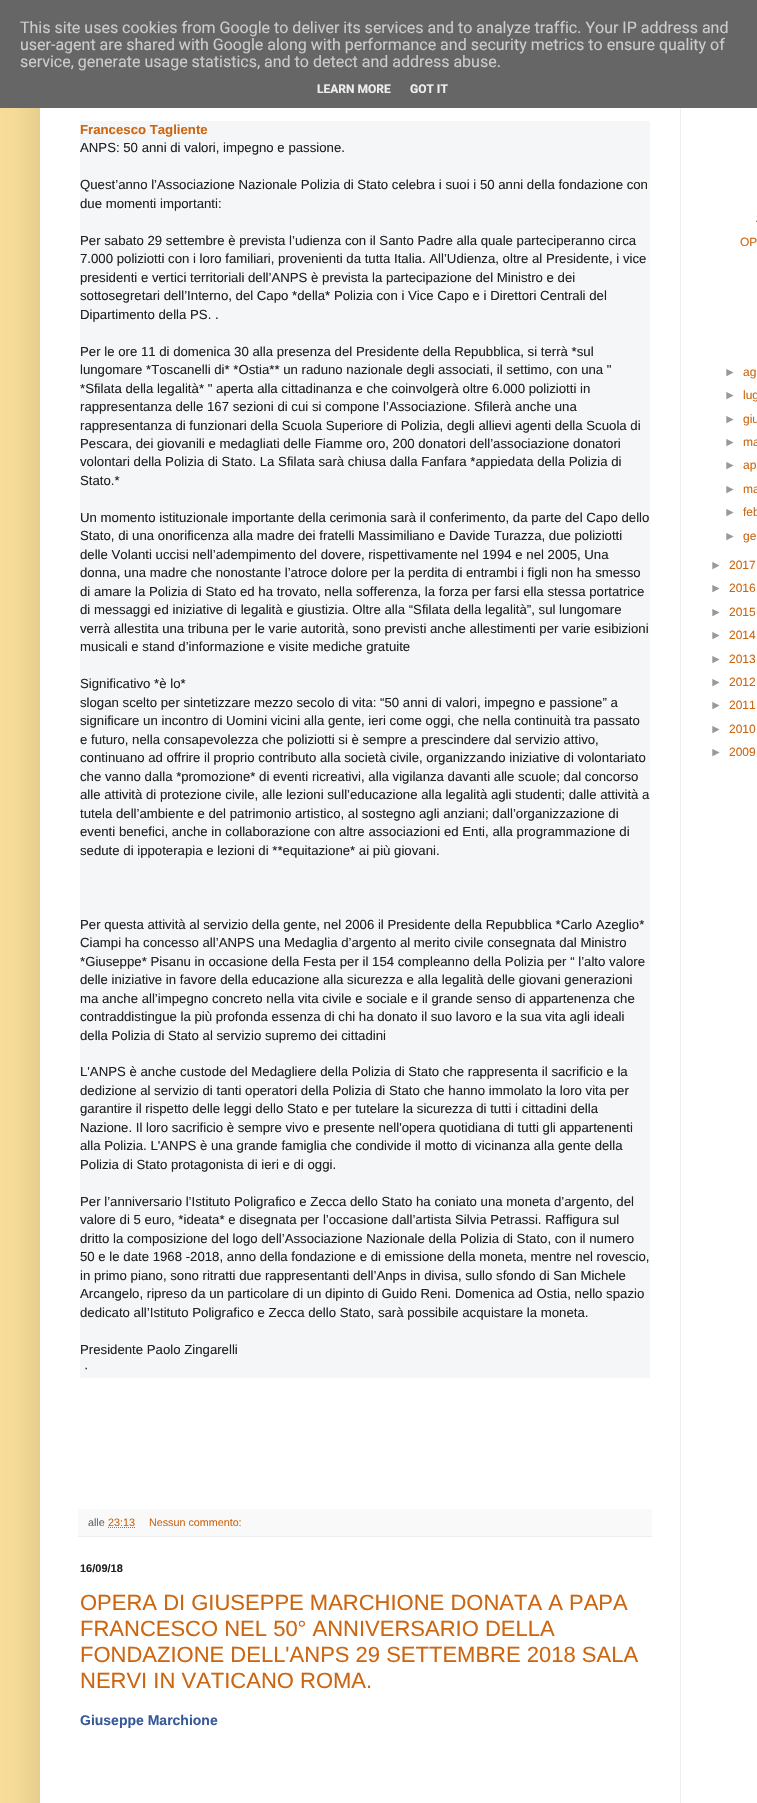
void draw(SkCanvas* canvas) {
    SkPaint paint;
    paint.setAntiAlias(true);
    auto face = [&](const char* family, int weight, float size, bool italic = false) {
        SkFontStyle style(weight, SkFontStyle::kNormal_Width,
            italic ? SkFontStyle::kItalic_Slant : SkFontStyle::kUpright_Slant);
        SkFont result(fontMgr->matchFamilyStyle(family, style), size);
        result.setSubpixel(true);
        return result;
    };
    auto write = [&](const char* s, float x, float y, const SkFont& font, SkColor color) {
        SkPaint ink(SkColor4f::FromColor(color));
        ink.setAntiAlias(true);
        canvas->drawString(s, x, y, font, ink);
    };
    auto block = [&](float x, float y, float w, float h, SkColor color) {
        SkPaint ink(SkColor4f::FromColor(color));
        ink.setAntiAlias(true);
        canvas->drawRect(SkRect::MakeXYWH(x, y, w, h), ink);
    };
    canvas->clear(SkColorSetRGB(248, 222, 153));
    paint.setColor(SkColorSetARGB(38, 0, 0, 0));
    paint.setMaskFilter(SkMaskFilter::MakeBlur(kNormal_SkBlurStyle, 20));
    canvas->drawRect(SkRect::MakeXYWH(40, -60, 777, 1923), paint);
    paint.setMaskFilter(nullptr);
    block(0, 0, 757, 108, SkColorSetRGB(102, 102, 102));
    auto kFont1 = face("Roboto", 400, 16);
    write("This site uses cookies from Google to deliver its services and to analyze traffic. Your IP address and", 20, 33, kFont1, SkColorSetRGB(204, 204, 204));
    write("user-agent are shared with Google along with performance and security metrics to ensure quality of", 20, 50, kFont1, SkColorSetRGB(204, 204, 204));
    write("service, generate usage statistics, and to detect and address abuse.", 20, 67, kFont1, SkColorSetRGB(204, 204, 204));
    auto kFont2 = face("Roboto", 700, 12);
    write("LEARN MORE", 317, 93, kFont2, SkColorSetRGB(238, 238, 238));
    write("GOT IT", 410, 93, kFont2, SkColorSetRGB(238, 238, 238));
    block(40, 108, 717, 1695, SK_ColorWHITE);
    block(680, 108, 1, 1695, SkColorSetRGB(238, 238, 238));
    block(80, 121, 570, 1257, SkColorSetRGB(245, 246, 247));
    auto kFont3 = face("Liberation Sans", 700, 13.2f);
    write("Francesco Tagliente", 80, 134, kFont3, SkColorSetRGB(204, 102, 17));
    auto kFont4 = face("Liberation Sans", 400, 13.2f);
    write("ANPS: 50 anni di valori, impegno e passione.", 80, 152, kFont4, SkColorSetRGB(34, 34, 34));
    write("Quest’anno l’Associazione Nazionale Polizia di Stato celebra i suoi i 50 anni della fondazione con", 80, 189, kFont4, SkColorSetRGB(34, 34, 34));
    write("due momenti importanti:", 80, 208, kFont4, SkColorSetRGB(34, 34, 34));
    write("Per sabato 29 settembre è prevista l’udienza con il Santo Padre alla quale parteciperanno circa", 80, 245, kFont4, SkColorSetRGB(34, 34, 34));
    write("7.000 poliziotti con i loro familiari, provenienti da tutta Italia. All’Udienza, oltre al Presidente, i vice", 80, 263, kFont4, SkColorSetRGB(34, 34, 34));
    write("presidenti e vertici territoriali dell’ANPS è prevista la partecipazione del Ministro e dei", 80, 282, kFont4, SkColorSetRGB(34, 34, 34));
    write("sottosegretari dell’Interno, del Capo *della* Polizia con i Vice Capo e i Direttori Centrali del", 80, 300, kFont4, SkColorSetRGB(34, 34, 34));
    write("Dipartimento della PS. .", 80, 319, kFont4, SkColorSetRGB(34, 34, 34));
    write("Per le ore 11 di domenica 30 alla presenza del Presidente della Repubblica, si terrà *sul", 80, 356, kFont4, SkColorSetRGB(34, 34, 34));
    write("lungomare *Toscanelli di* *Ostia** un raduno nazionale degli associati, il settimo, con una \"", 80, 374, kFont4, SkColorSetRGB(34, 34, 34));
    write("*Sfilata della legalità* \" aperta alla cittadinanza e che coinvolgerà oltre 6.000 poliziotti in", 80, 393, kFont4, SkColorSetRGB(34, 34, 34));
    write("rappresentanza delle 167 sezioni di cui si compone l’Associazione. Sfilerà anche una", 80, 411, kFont4, SkColorSetRGB(34, 34, 34));
    write("rappresentanza di funzionari della Scuola Superiore di Polizia, degli allievi agenti della Scuola di", 80, 430, kFont4, SkColorSetRGB(34, 34, 34));
    write("Pescara, dei giovanili e medagliati delle Fiamme oro, 200 donatori dell’associazione donatori", 80, 448, kFont4, SkColorSetRGB(34, 34, 34));
    write("volontari della Polizia di Stato. La Sfilata sarà chiusa dalla Fanfara *appiedata della Polizia di", 80, 466, kFont4, SkColorSetRGB(34, 34, 34));
    write("Stato.*", 80, 485, kFont4, SkColorSetRGB(34, 34, 34));
    write("Un momento istituzionale importante della cerimonia sarà il conferimento, da parte del Capo dello", 80, 522, kFont4, SkColorSetRGB(34, 34, 34));
    write("Stato, di una onorificenza alla madre dei fratelli Massimiliano e Davide Turazza, due poliziotti", 80, 540, kFont4, SkColorSetRGB(34, 34, 34));
    write("delle Volanti uccisi nell’adempimento del dovere, rispettivamente", 80, 559, kFont4, SkColorSetRGB(34, 34, 34));
    write("nel 1994 e nel 2005, Una", 461, 559, kFont4, SkColorSetRGB(34, 34, 34));
    write("donna, una madre che nonostante l’atroce dolore per la perdita di entrambi i figli non ha smesso", 80, 577, kFont4, SkColorSetRGB(34, 34, 34));
    write("di amare la Polizia di Stato ed ha trovato, nella sofferenza, la forza per farsi ella stessa portatrice", 80, 596, kFont4, SkColorSetRGB(34, 34, 34));
    write("di messaggi ed iniziative di legalità e giustizia. Oltre alla “Sfilata della legalità”, sul lungomare", 80, 614, kFont4, SkColorSetRGB(34, 34, 34));
    write("verrà allestita una tribuna per le varie autorità, sono previsti anche allestimenti per varie esibizioni", 80, 633, kFont4, SkColorSetRGB(34, 34, 34));
    write("musicali e stand d’informazione e visite mediche gratuite", 80, 651, kFont4, SkColorSetRGB(34, 34, 34));
    write("Significativo *è lo*", 80, 688, kFont4, SkColorSetRGB(34, 34, 34));
    write("slogan scelto per sintetizzare mezzo secolo di vita: “50 anni di valori, impegno e passione” a", 80, 707, kFont4, SkColorSetRGB(34, 34, 34));
    write("significare un incontro di Uomini vicini alla gente, ieri come oggi, che nella continuità tra passato", 80, 725, kFont4, SkColorSetRGB(34, 34, 34));
    write("e futuro, nella consapevolezza che poliziotti si è sempre a prescindere dal servizio attivo,", 80, 744, kFont4, SkColorSetRGB(34, 34, 34));
    write("continuano ad offrire il proprio contributo alla società civile, organizzando iniziative di volontariato", 80, 762, kFont4, SkColorSetRGB(34, 34, 34));
    write("che vanno dalla *promozione* di eventi ricreativi, alla vigilanza davanti alle scuole; dal concorso", 80, 781, kFont4, SkColorSetRGB(34, 34, 34));
    write("alle attività di protezione civile, alle lezioni sull’educazione alla legalità agli studenti; dalle attività a", 80, 799, kFont4, SkColorSetRGB(34, 34, 34));
    write("tutela dell’ambiente e del patrimonio artistico, al sostegno agli anziani; dall’organizzazione di", 80, 818, kFont4, SkColorSetRGB(34, 34, 34));
    write("eventi benefici, anche in collaborazione con altre associazioni ed Enti, alla programmazione di", 80, 836, kFont4, SkColorSetRGB(34, 34, 34));
    write("sedute di ippoterapia e lezioni di **equitazione* ai più giovani.", 80, 855, kFont4, SkColorSetRGB(34, 34, 34));
    write("Per questa attività al servizio della gente, nel 2006 il Presidente della Repubblica *Carlo Azeglio*", 80, 929, kFont4, SkColorSetRGB(34, 34, 34));
    write("Ciampi ha concesso all’ANPS una Medaglia d’argento al merito civile consegnata dal Ministro", 80, 947, kFont4, SkColorSetRGB(34, 34, 34));
    write("*Giuseppe* Pisanu in occasione della Festa per il 154 compleanno della Polizia per “ l’alto valore", 80, 966, kFont4, SkColorSetRGB(34, 34, 34));
    write("delle iniziative in favore della educazione alla sicurezza e alla legalità delle giovani generazioni", 80, 984, kFont4, SkColorSetRGB(34, 34, 34));
    write("ma anche all’impegno concreto nella vita civile e sociale e il grande senso di appartenenza che", 80, 1003, kFont4, SkColorSetRGB(34, 34, 34));
    write("contraddistingue la più profonda essenza di chi ha donato il suo lavoro e la sua vita agli ideali", 80, 1021, kFont4, SkColorSetRGB(34, 34, 34));
    write("della Polizia di Stato al servizio supremo dei cittadini", 80, 1040, kFont4, SkColorSetRGB(34, 34, 34));
    write("L'ANPS è anche custode del Medagliere della Polizia di Stato che rappresenta il sacrificio e la", 80, 1076, kFont4, SkColorSetRGB(34, 34, 34));
    write("dedizione al servizio di tanti operatori della Polizia di Stato che hanno immolato la loro vita per", 80, 1095, kFont4, SkColorSetRGB(34, 34, 34));
    write("garantire il rispetto delle leggi dello Stato e per tutelare la sicurezza di tutti i cittadini della", 80, 1113, kFont4, SkColorSetRGB(34, 34, 34));
    write("Nazione. Il loro sacrificio è sempre vivo e presente nell'opera quotidiana di tutti gli appartenenti", 80, 1132, kFont4, SkColorSetRGB(34, 34, 34));
    write("alla Polizia. L'ANPS è una grande famiglia che condivide il motto di vicinanza alla gente della", 80, 1150, kFont4, SkColorSetRGB(34, 34, 34));
    write("Polizia di Stato protagonista di ieri e di oggi.", 80, 1169, kFont4, SkColorSetRGB(34, 34, 34));
    write("Per l’anniversario l’Istituto Poligrafico e Zecca dello Stato ha coniato una moneta d’argento, del", 80, 1206, kFont4, SkColorSetRGB(34, 34, 34));
    write("valore di 5 euro, *ideata* e disegnata per l’occasione dall’artista Silvia Petrassi. Raffigura sul", 80, 1224, kFont4, SkColorSetRGB(34, 34, 34));
    write("dritto la composizione del logo dell’Associazione Nazionale della Polizia di Stato, con il numero", 80, 1243, kFont4, SkColorSetRGB(34, 34, 34));
    write("50 e le date 1968 -2018, anno della fondazione e di emissione della moneta, mentre nel rovescio,", 80, 1261, kFont4, SkColorSetRGB(34, 34, 34));
    write("in primo piano, sono ritratti due rappresentanti dell’Anps in divisa, sullo sfondo di San Michele", 80, 1280, kFont4, SkColorSetRGB(34, 34, 34));
    write("Arcangelo, ripreso da un particolare di un dipinto di Guido Reni. Domenica ad Ostia, nello spazio", 80, 1298, kFont4, SkColorSetRGB(34, 34, 34));
    write("dedicato all’Istituto Poligrafico e Zecca dello Stato, sarà possibile acquistare la moneta.", 80, 1317, kFont4, SkColorSetRGB(34, 34, 34));
    write("Presidente Paolo Zingarelli", 80, 1354, kFont4, SkColorSetRGB(34, 34, 34));
    write("·", 84, 1372, kFont4, SkColorSetRGB(34, 34, 34));
    block(78, 1509, 574, 27, SkColorSetRGB(249, 249, 249));
    block(78, 1536, 574, 1, SkColorSetRGB(238, 238, 238));
    auto kFont5 = face("Liberation Sans", 400, 10.75f);
    write("alle", 88, 1526, kFont5, SkColorSetRGB(102, 102, 102));
    write("23:13", 108, 1526, kFont5, SkColorSetRGB(204, 102, 17));
    paint.setStyle(SkPaint::kStroke_Style);
    paint.setStrokeWidth(1);
    paint.setColor(SkColorSetRGB(204, 102, 17));
    paint.setPathEffect(SkDashPathEffect::Make({{1, 1}}, 0));
    canvas->drawPath(SkPathBuilder().moveTo(108, 1527.5f).lineTo(135, 1527.5f).detach(), paint);
    paint.setPathEffect(nullptr);
    write("Nessun commento:", 149, 1526, kFont5, SkColorSetRGB(204, 102, 17));
    auto kFont6 = face("Liberation Sans", 700, 11);
    write("16/09/18", 80, 1572, kFont6, SkColorSetRGB(34, 34, 34));
    auto kFont7 = face("Liberation Sans", 400, 22);
    write("OPERA DI GIUSEPPE MARCHIONE DONATA A PAPA", 80, 1610, kFont7, SkColorSetRGB(204, 102, 17));
    write("FRANCESCO NEL 50° ANNIVERSARIO DELLA", 80, 1636, kFont7, SkColorSetRGB(204, 102, 17));
    write("FONDAZIONE DELL'ANPS 29 SETTEMBRE 2018 SALA", 80, 1662, kFont7, SkColorSetRGB(204, 102, 17));
    write("NERVI IN VATICANO ROMA.", 80, 1688, kFont7, SkColorSetRGB(204, 102, 17));
    auto kFont8 = face("Liberation Sans", 700, 14);
    write("Giuseppe Marchione", 80, 1725, kFont8, SkColorSetRGB(54, 88, 153));
    auto kFont9 = face("Liberation Sans", 400, 12);
    write(".", 755, 222, kFont9, SkColorSetRGB(204, 102, 17));
    write("OP", 740, 246, kFont9, SkColorSetRGB(204, 102, 17));
    write("►", 724, 376, kFont9, SkColorSetRGB(153, 153, 153));
    write("ag", 743, 376, kFont9, SkColorSetRGB(204, 102, 17));
    write("►", 724, 399, kFont9, SkColorSetRGB(153, 153, 153));
    write("lug", 743, 399, kFont9, SkColorSetRGB(204, 102, 17));
    write("►", 724, 423, kFont9, SkColorSetRGB(153, 153, 153));
    write("giu", 743, 423, kFont9, SkColorSetRGB(204, 102, 17));
    write("►", 724, 446, kFont9, SkColorSetRGB(153, 153, 153));
    write("ma", 743, 446, kFont9, SkColorSetRGB(204, 102, 17));
    write("►", 724, 469, kFont9, SkColorSetRGB(153, 153, 153));
    write("ap", 743, 469, kFont9, SkColorSetRGB(204, 102, 17));
    write("►", 724, 493, kFont9, SkColorSetRGB(153, 153, 153));
    write("ma", 743, 493, kFont9, SkColorSetRGB(204, 102, 17));
    write("►", 724, 516, kFont9, SkColorSetRGB(153, 153, 153));
    write("feb", 743, 516, kFont9, SkColorSetRGB(204, 102, 17));
    write("►", 724, 540, kFont9, SkColorSetRGB(153, 153, 153));
    write("ge", 743, 540, kFont9, SkColorSetRGB(204, 102, 17));
    write("►", 710, 569, kFont9, SkColorSetRGB(153, 153, 153));
    write("2017", 729, 569, kFont9, SkColorSetRGB(204, 102, 17));
    write("►", 710, 592, kFont9, SkColorSetRGB(153, 153, 153));
    write("2016", 729, 592, kFont9, SkColorSetRGB(204, 102, 17));
    write("►", 710, 616, kFont9, SkColorSetRGB(153, 153, 153));
    write("2015", 729, 616, kFont9, SkColorSetRGB(204, 102, 17));
    write("►", 710, 639, kFont9, SkColorSetRGB(153, 153, 153));
    write("2014", 729, 639, kFont9, SkColorSetRGB(204, 102, 17));
    write("►", 710, 663, kFont9, SkColorSetRGB(153, 153, 153));
    write("2013", 729, 663, kFont9, SkColorSetRGB(204, 102, 17));
    write("►", 710, 686, kFont9, SkColorSetRGB(153, 153, 153));
    write("2012", 729, 686, kFont9, SkColorSetRGB(204, 102, 17));
    write("►", 710, 709, kFont9, SkColorSetRGB(153, 153, 153));
    write("2011", 729, 709, kFont9, SkColorSetRGB(204, 102, 17));
    write("►", 710, 733, kFont9, SkColorSetRGB(153, 153, 153));
    write("2010", 729, 733, kFont9, SkColorSetRGB(204, 102, 17));
    write("►", 710, 756, kFont9, SkColorSetRGB(153, 153, 153));
    write("2009", 729, 756, kFont9, SkColorSetRGB(204, 102, 17));
}
